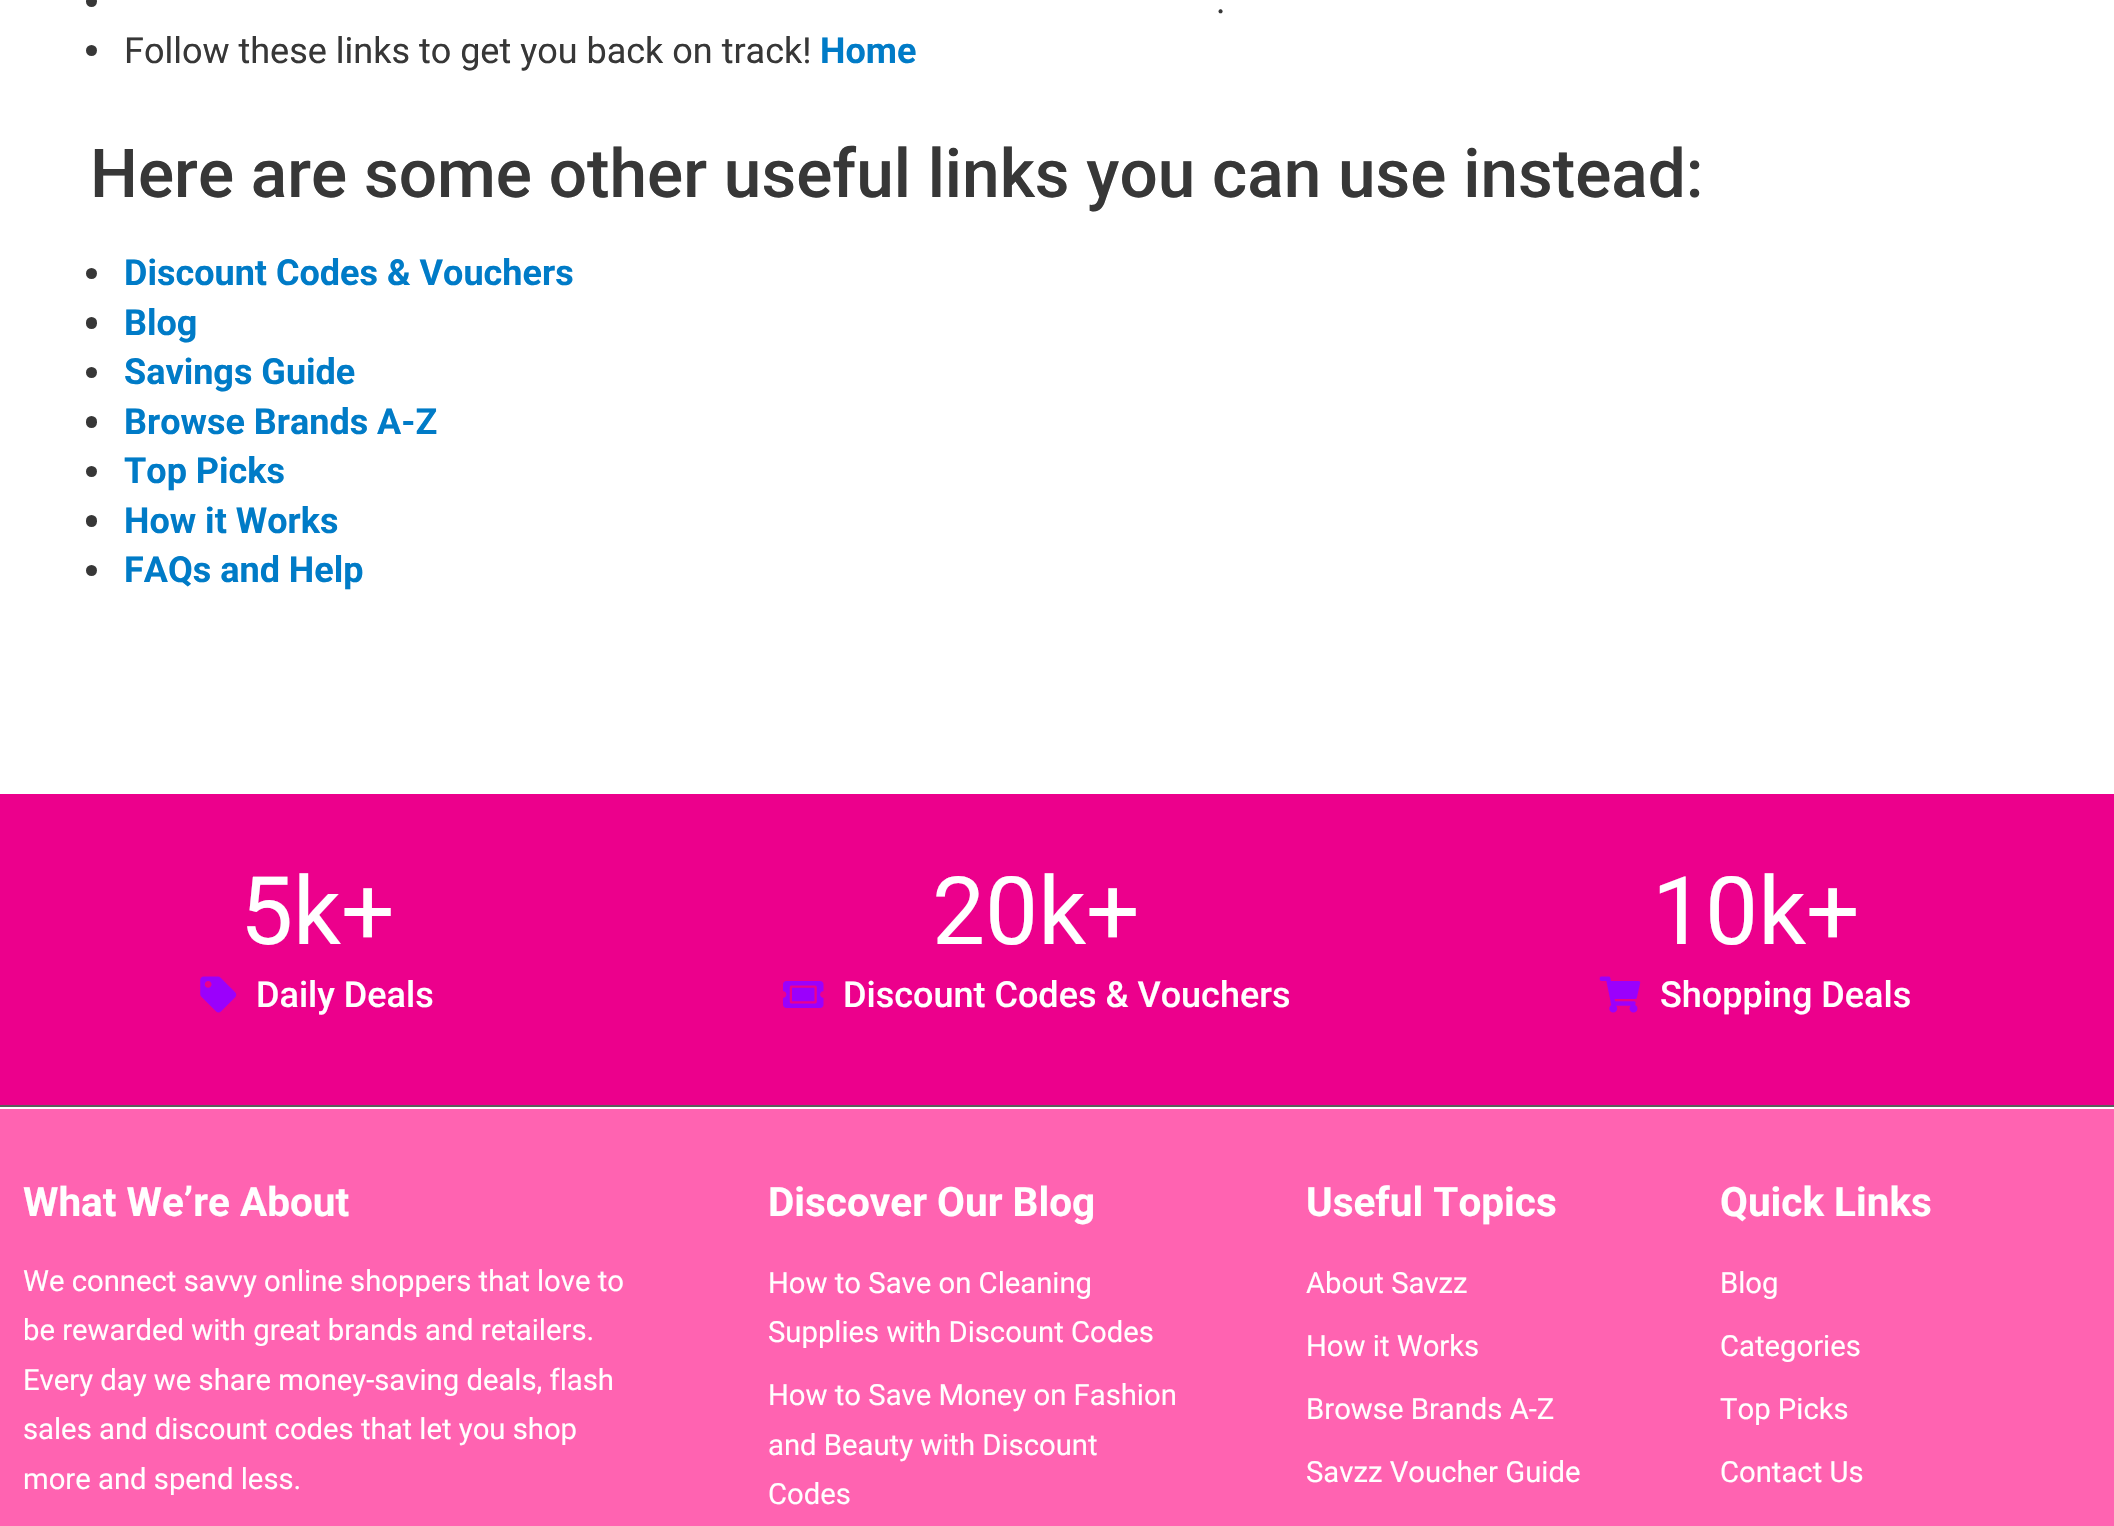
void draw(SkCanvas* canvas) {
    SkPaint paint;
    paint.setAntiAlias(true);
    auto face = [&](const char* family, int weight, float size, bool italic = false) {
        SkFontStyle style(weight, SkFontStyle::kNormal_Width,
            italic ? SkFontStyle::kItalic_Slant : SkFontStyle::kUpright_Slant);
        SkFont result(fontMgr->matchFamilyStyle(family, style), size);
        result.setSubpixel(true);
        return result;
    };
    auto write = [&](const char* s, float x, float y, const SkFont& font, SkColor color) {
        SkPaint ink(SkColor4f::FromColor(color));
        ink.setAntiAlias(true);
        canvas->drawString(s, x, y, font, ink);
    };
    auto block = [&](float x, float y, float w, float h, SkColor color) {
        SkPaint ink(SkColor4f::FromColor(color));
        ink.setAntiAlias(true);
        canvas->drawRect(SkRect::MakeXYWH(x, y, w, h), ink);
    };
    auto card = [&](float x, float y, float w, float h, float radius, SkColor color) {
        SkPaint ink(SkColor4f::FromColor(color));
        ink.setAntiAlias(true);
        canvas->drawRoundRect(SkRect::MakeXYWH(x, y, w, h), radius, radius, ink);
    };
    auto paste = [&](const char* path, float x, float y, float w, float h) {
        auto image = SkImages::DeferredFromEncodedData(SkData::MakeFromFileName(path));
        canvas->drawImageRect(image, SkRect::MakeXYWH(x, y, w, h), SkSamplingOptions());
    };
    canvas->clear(SK_ColorWHITE);
    paint.setColor(SkColorSetRGB(55, 55, 55));
    canvas->drawCircle(91.5f, 1.5f, 5.5f, paint);
    auto kFont1 = face("Roboto", 400, 36);
    write(".", 1216, 13, kFont1, SkColorSetRGB(55, 55, 55));
    canvas->drawCircle(91.5f, 50.5f, 5.5f, paint);
    write("Follow these links to get you back on track!", 124, 63, kFont1, SkColorSetRGB(55, 55, 55));
    auto kFont2 = face("Roboto", 700, 36);
    write("Home", 820, 63, kFont2, SkColorSetRGB(0, 123, 199));
    auto kFont3 = face("Roboto", 500, 67.5f);
    write("Here are some other useful links you can use instead:", 90, 197, kFont3, SkColorSetRGB(55, 55, 55));
    canvas->drawCircle(91.5f, 273.5f, 5.5f, paint);
    write("Discount Codes & Vouchers", 124, 285, kFont2, SkColorSetRGB(0, 123, 199));
    card(86, 317, 11, 12, 5.5f, SkColorSetRGB(55, 55, 55));
    write("Blog", 124, 335, kFont2, SkColorSetRGB(0, 123, 199));
    canvas->drawCircle(91.5f, 372.5f, 5.5f, paint);
    write("Savings Guide", 124, 384, kFont2, SkColorSetRGB(0, 123, 199));
    card(86, 416, 11, 12, 5.5f, SkColorSetRGB(55, 55, 55));
    write("Browse Brands A-Z", 124, 434, kFont2, SkColorSetRGB(0, 123, 199));
    canvas->drawCircle(91.5f, 471.5f, 5.5f, paint);
    write("Top Picks", 124, 483, kFont2, SkColorSetRGB(0, 123, 199));
    card(86, 515, 11, 12, 5.5f, SkColorSetRGB(55, 55, 55));
    write("How it Works", 124, 533, kFont2, SkColorSetRGB(0, 123, 199));
    canvas->drawCircle(91.5f, 570.5f, 5.5f, paint);
    write("FAQs and Help", 124, 582, kFont2, SkColorSetRGB(0, 123, 199));
    block(0, 794, 2114, 311, SkColorSetRGB(236, 0, 140));
    block(0, 1105, 2114, 2, SkColorSetRGB(93, 93, 93));
    auto kFont4 = face("Roboto", 400, 94.5f);
    write("5k+", 240, 944, kFont4, SK_ColorWHITE);
    paste("pic1.png", 200, 976, 37, 37);
    auto kFont5 = face("Roboto", 500, 36);
    write("Daily Deals", 256, 1007, kFont5, SK_ColorWHITE);
    write("20k+", 932, 944, kFont4, SK_ColorWHITE);
    paste("pic2.png", 783, 981, 41, 27);
    write("Discount Codes & Vouchers", 843, 1007, kFont5, SK_ColorWHITE);
    write("10k+", 1652, 944, kFont4, SK_ColorWHITE);
    paste("pic3.png", 1599, 976, 42, 37);
    write("Shopping Deals", 1660, 1007, kFont5, SK_ColorWHITE);
    block(0, 1109, 2114, 417, SkColorSetRGB(255, 99, 177));
    auto kFont6 = face("Roboto", 700, 40.5f);
    write("What We’re About", 23, 1216, kFont6, SK_ColorWHITE);
    auto kFont7 = face("Roboto", 400, 29.25f);
    write("We connect savvy online shoppers that love to", 23, 1291, kFont7, SK_ColorWHITE);
    write("be rewarded with great brands and retailers.", 23, 1340, kFont7, SK_ColorWHITE);
    write("Every day we share money-saving deals, flash", 23, 1390, kFont7, SK_ColorWHITE);
    write("sales and discount codes that let you shop", 23, 1439, kFont7, SK_ColorWHITE);
    write("more and spend less.", 23, 1489, kFont7, SK_ColorWHITE);
    write("Discover Our Blog", 768, 1216, kFont6, SK_ColorWHITE);
    write("How to Save on Cleaning", 768, 1293, kFont7, SK_ColorWHITE);
    write("Supplies with Discount Codes", 768, 1342, kFont7, SK_ColorWHITE);
    write("How to Save Money on Fashion", 768, 1405, kFont7, SK_ColorWHITE);
    write("and Beauty with Discount", 768, 1455, kFont7, SK_ColorWHITE);
    write("Codes", 768, 1504, kFont7, SK_ColorWHITE);
    write("Useful Topics", 1306, 1216, kFont6, SK_ColorWHITE);
    write("About Savzz", 1306, 1293, kFont7, SK_ColorWHITE);
    write("How it Works", 1306, 1356, kFont7, SK_ColorWHITE);
    write("Browse Brands A-Z", 1306, 1419, kFont7, SK_ColorWHITE);
    write("Savzz Voucher Guide", 1306, 1482, kFont7, SK_ColorWHITE);
    write("Quick Links", 1720, 1216, kFont6, SK_ColorWHITE);
    write("Blog", 1720, 1293, kFont7, SK_ColorWHITE);
    write("Categories", 1720, 1356, kFont7, SK_ColorWHITE);
    write("Top Picks", 1720, 1419, kFont7, SK_ColorWHITE);
    write("Contact Us", 1720, 1482, kFont7, SK_ColorWHITE);
}
